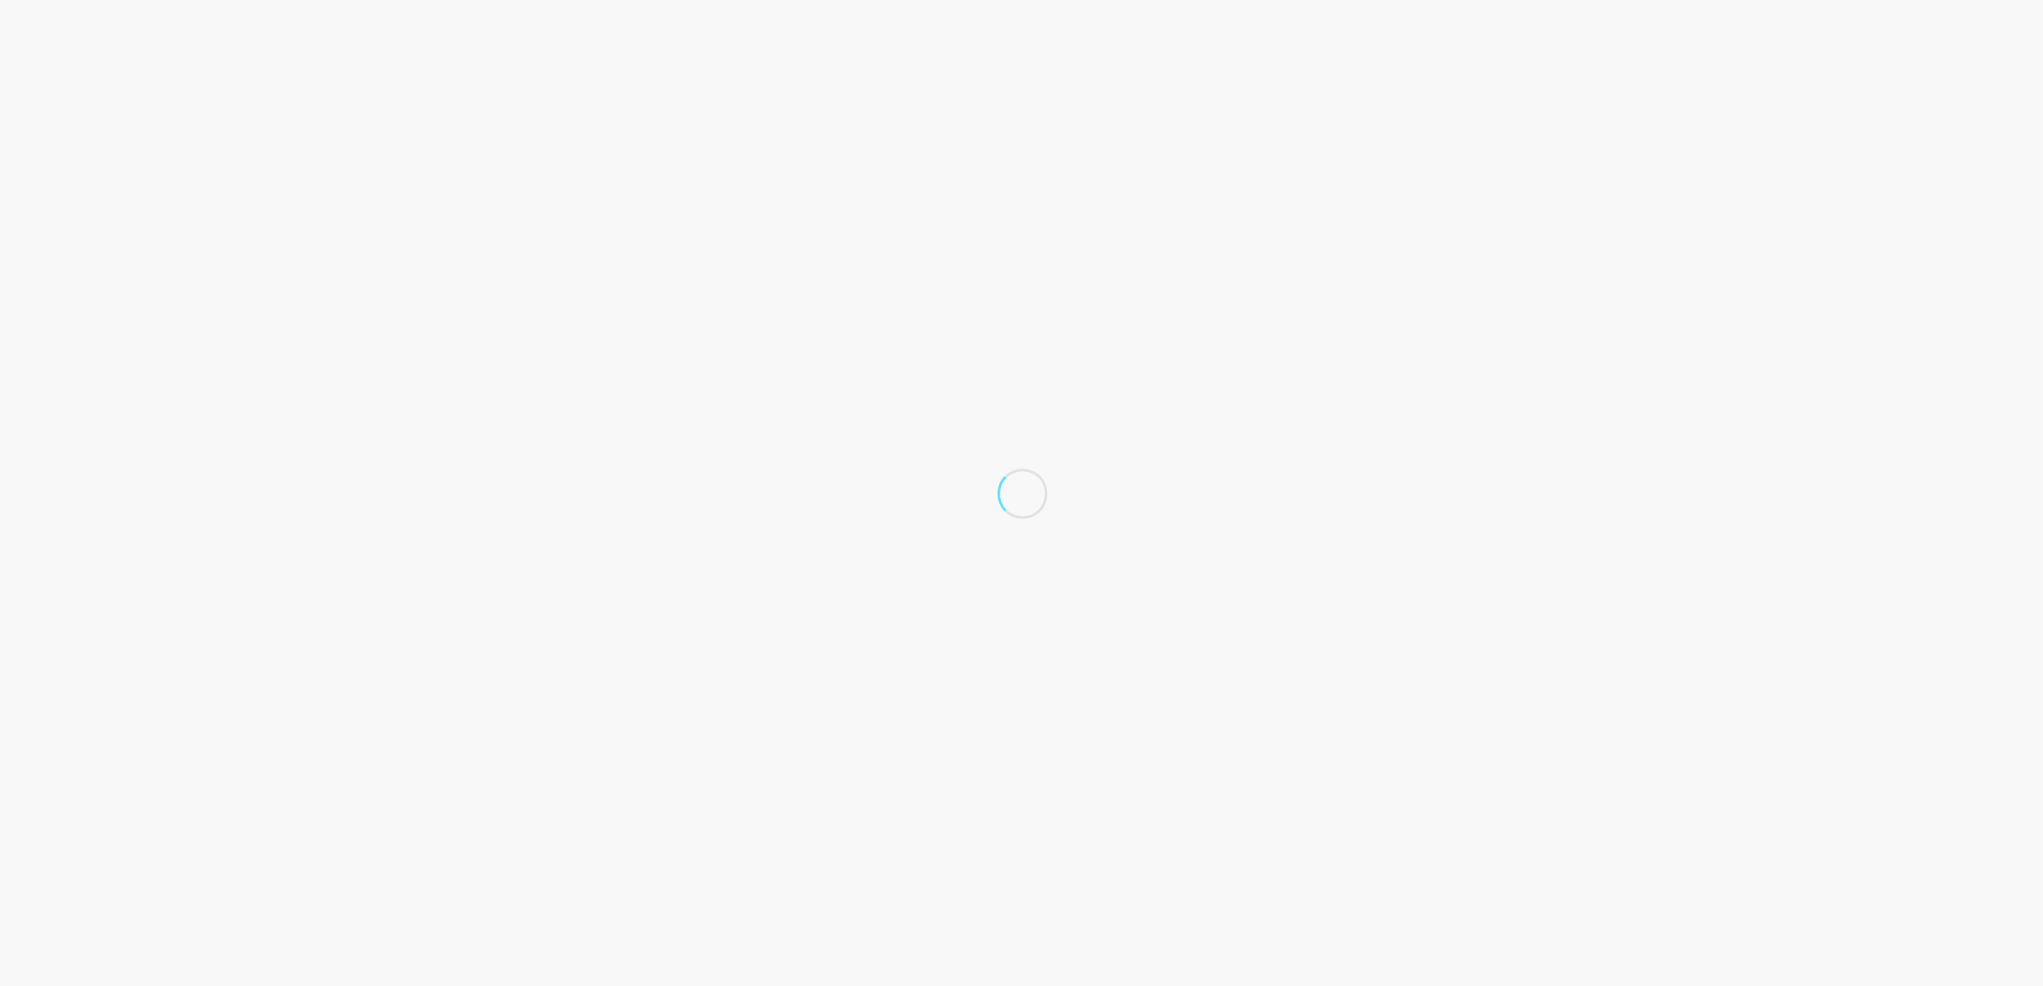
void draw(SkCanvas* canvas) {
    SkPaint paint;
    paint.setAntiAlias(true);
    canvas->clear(SkColorSetRGB(248, 248, 248));
    paint.setStyle(SkPaint::kStroke_Style);
    paint.setStrokeWidth(2.5f);
    paint.setColor(SkColorSetRGB(225, 225, 225));
    canvas->drawPath(SkPathBuilder().moveTo(1005.5f, 477).cubicTo(1011.5f, 471.5f, 1019.5f, 469, 1027, 470.5f).cubicTo(1055, 476, 1051, 517.5f, 1022.5f, 517.5f).cubicTo(1016, 517.5f, 1010, 515, 1005.5f, 510.5f).detach(), paint);
    paint.setColor(SkColorSetRGB(96, 226, 255));
    canvas->drawPath(SkPathBuilder().moveTo(1005.5f, 510.5f).cubicTo(996.5f, 501.5f, 996.5f, 486, 1005.5f, 477).detach(), paint);
}
